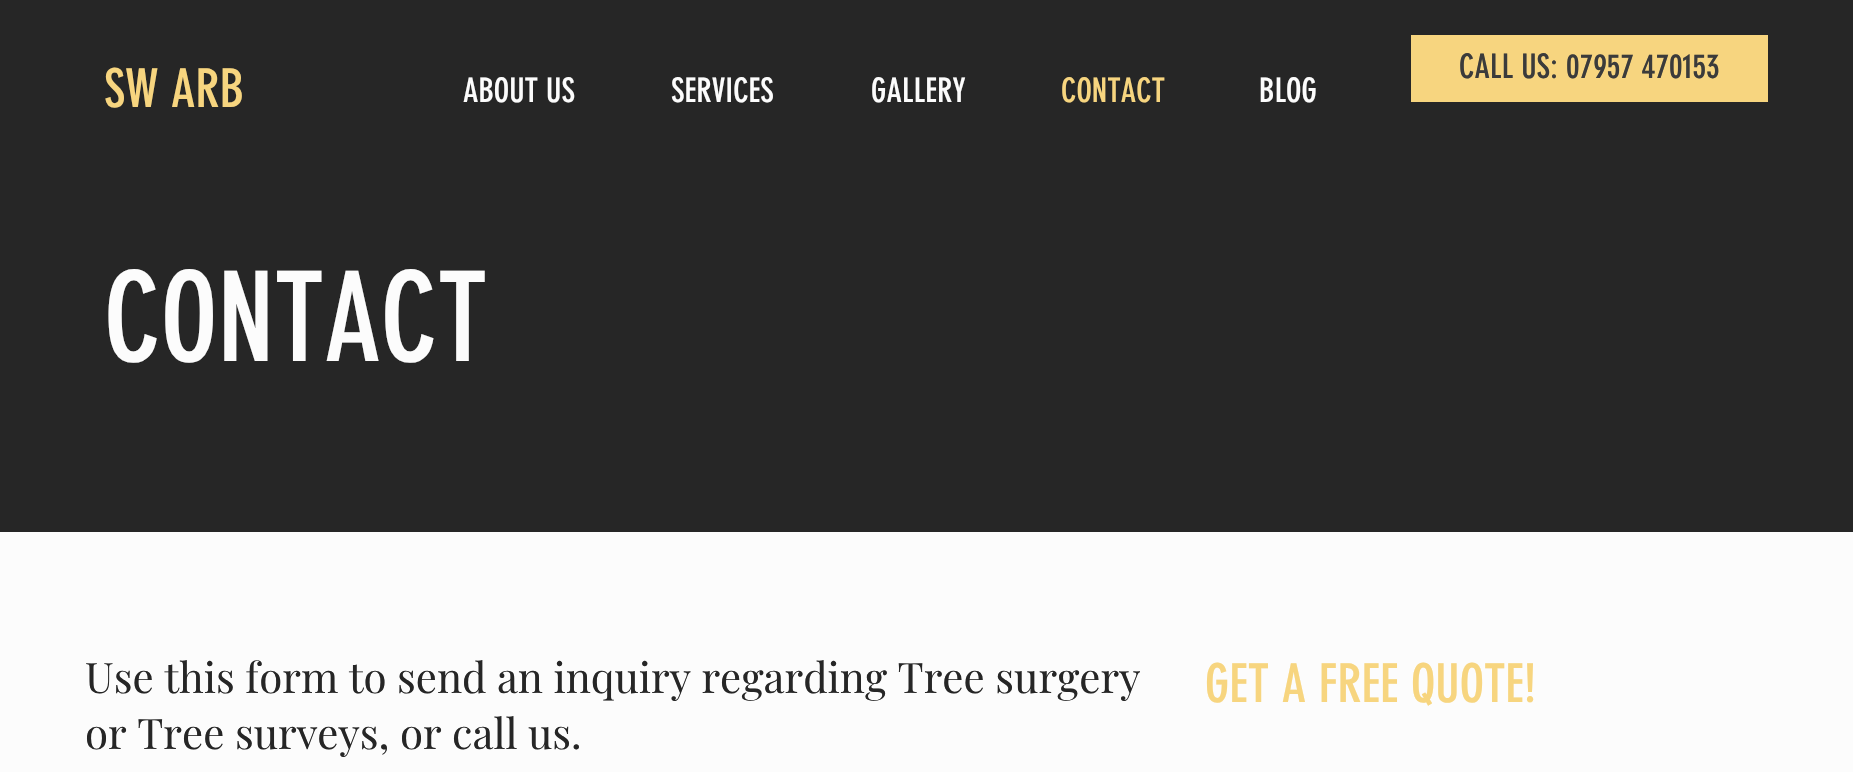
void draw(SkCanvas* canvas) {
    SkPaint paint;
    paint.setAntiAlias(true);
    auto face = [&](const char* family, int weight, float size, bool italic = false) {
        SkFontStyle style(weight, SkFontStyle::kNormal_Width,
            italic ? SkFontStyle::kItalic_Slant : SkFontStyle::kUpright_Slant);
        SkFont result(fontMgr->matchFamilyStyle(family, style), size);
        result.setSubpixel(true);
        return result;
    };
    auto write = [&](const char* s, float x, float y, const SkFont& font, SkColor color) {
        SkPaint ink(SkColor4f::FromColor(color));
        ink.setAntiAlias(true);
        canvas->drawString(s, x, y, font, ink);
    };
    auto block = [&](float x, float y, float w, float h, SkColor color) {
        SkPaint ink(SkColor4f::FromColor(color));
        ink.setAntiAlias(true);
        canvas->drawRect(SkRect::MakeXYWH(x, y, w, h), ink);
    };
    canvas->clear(SkColorSetRGB(38, 38, 38));
    auto kFont1 = face("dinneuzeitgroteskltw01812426", 400, 52.5f);
    write("SW ARB", 104, 107, kFont1, SkColorSetRGB(247, 213, 127));
    auto kFont2 = face("dinneuzeitgroteskltw01812426", 400, 33.25f);
    write("ABOUT US", 463, 102, kFont2, SkColorSetRGB(252, 252, 252));
    write("SERVICES", 671, 102, kFont2, SkColorSetRGB(252, 252, 252));
    write("GALLERY", 871, 102, kFont2, SkColorSetRGB(252, 252, 252));
    write("CONTACT", 1061, 102, kFont2, SkColorSetRGB(247, 213, 127));
    write("BLOG", 1259, 102, kFont2, SkColorSetRGB(252, 252, 252));
    block(1411, 35, 357, 67, SkColorSetRGB(247, 213, 127));
    write("CALL US: 07957 470153", 1459, 78, kFont2, SkColorSetRGB(59, 59, 59));
    auto kFont3 = face("dinneuzeitgroteskltw01812426", 400, 122.5f);
    write("CONTACT", 104, 361, kFont3, SkColorSetRGB(252, 252, 252));
    block(0, 532, 1853, 240, SkColorSetRGB(252, 252, 252));
    auto kFont4 = face("Playfair Display", 400, 42);
    write("Use this form to send an inquiry regarding Tree surgery", 85, 693, kFont4, SkColorSetRGB(38, 38, 38));
    write("or Tree surveys, or call us.", 85, 749, kFont4, SkColorSetRGB(38, 38, 38));
    write("GET A FREE QUOTE!", 1205, 702, kFont1, SkColorSetRGB(247, 213, 127));
}
